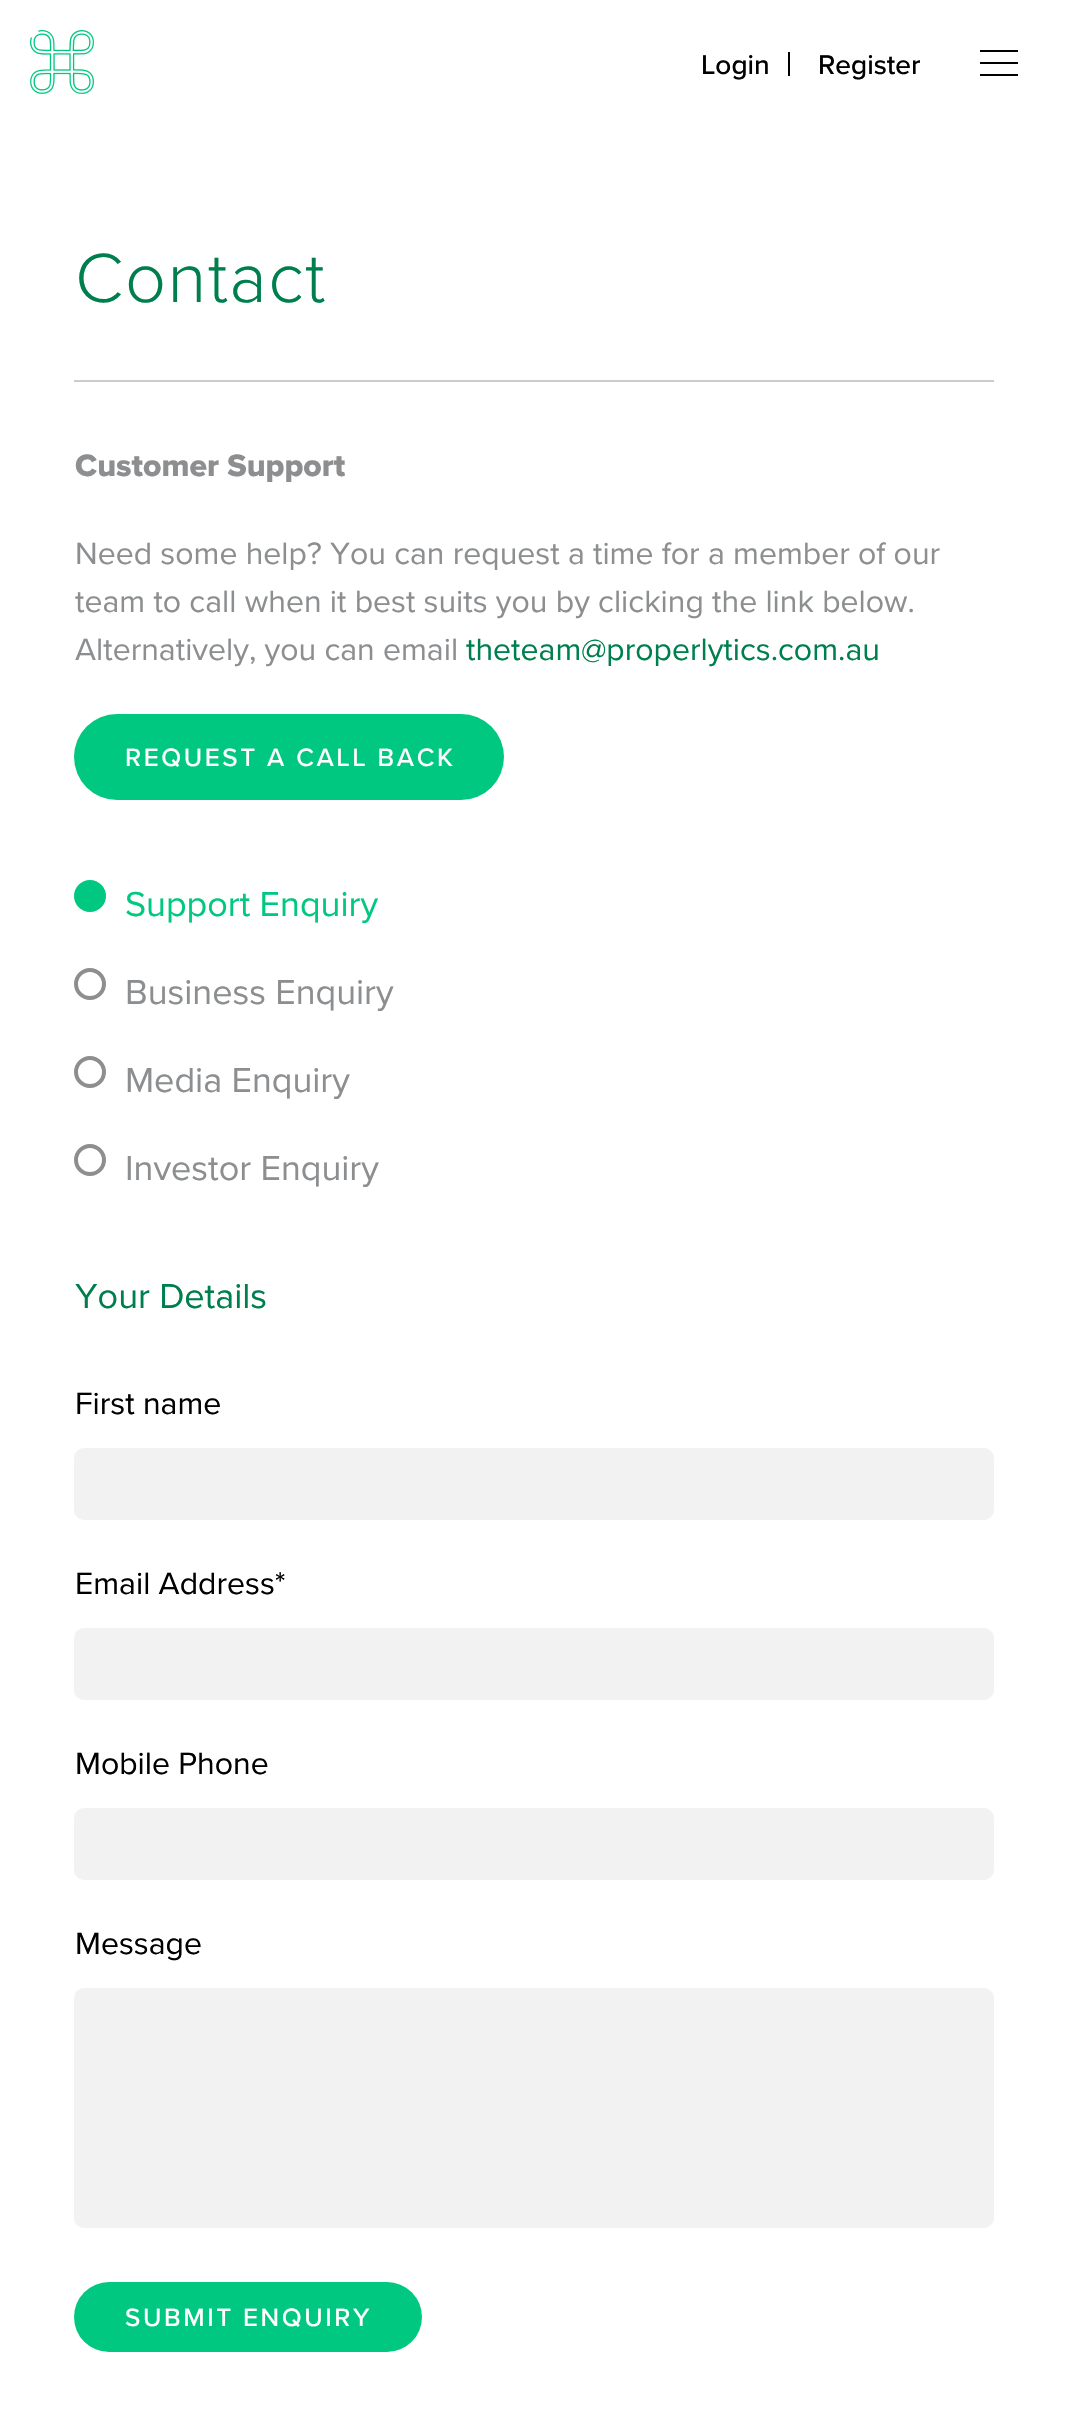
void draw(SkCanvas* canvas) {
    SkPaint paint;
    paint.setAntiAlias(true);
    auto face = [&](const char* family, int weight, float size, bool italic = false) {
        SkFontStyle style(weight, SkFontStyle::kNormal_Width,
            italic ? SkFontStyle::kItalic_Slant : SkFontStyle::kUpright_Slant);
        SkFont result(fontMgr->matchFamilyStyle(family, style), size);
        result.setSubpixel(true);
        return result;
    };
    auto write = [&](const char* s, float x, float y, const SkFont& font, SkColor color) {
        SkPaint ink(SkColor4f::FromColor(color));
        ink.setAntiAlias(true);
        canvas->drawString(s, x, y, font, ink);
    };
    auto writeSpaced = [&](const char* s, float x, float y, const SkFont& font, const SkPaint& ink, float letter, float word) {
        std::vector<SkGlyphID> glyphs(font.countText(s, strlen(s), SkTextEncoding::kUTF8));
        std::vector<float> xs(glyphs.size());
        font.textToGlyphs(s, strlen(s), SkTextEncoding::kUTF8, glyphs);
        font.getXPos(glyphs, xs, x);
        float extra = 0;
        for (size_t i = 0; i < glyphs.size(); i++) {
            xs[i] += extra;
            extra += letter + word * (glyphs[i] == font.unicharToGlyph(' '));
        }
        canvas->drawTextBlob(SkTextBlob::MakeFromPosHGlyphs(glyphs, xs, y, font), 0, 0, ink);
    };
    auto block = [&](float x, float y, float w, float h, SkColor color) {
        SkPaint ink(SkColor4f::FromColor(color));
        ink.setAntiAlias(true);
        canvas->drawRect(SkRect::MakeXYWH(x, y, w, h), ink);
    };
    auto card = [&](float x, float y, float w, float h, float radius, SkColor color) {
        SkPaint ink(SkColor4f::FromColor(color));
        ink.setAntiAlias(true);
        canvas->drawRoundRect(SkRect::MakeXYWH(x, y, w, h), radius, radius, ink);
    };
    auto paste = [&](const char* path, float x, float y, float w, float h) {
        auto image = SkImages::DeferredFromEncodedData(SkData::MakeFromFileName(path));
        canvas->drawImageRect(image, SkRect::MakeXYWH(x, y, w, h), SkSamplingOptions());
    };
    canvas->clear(SK_ColorWHITE);
    paste("pic1.png", 30, 30, 64, 64);
    auto kFont1 = face("Proxima Nova", 500, 28);
    write("Login", 701, 74, kFont1, SK_ColorBLACK);
    block(788, 52, 2, 24, SK_ColorBLACK);
    write("Register", 818, 74, kFont1, SK_ColorBLACK);
    block(980, 50, 38, 2, SK_ColorBLACK);
    block(980, 62, 38, 2, SK_ColorBLACK);
    block(980, 74, 38, 2, SK_ColorBLACK);
    block(74, 380, 920, 2, SkColorSetRGB(204, 204, 204));
    auto kFont2 = face("Proxima Nova", 300, 72);
    paint.setColor(SkColorSetRGB(0, 127, 78));
    writeSpaced("Contact", 75, 302, kFont2, paint, 1.5f, 0);
    auto kFont3 = face("Proxima Nova", 800, 32);
    write("Customer Support", 75, 476, kFont3, SkColorSetRGB(140, 142, 144));
    auto kFont4 = face("Proxima Nova", 400, 32);
    write("Need some help? You can request a time for a member of our", 75, 564, kFont4, SkColorSetRGB(140, 142, 144));
    write("team to call when it best suits you by clicking the link below.", 75, 612, kFont4, SkColorSetRGB(140, 142, 144));
    write("Alternatively, you can email", 75, 660, kFont4, SkColorSetRGB(140, 142, 144));
    write("theteam@properlytics.com.au", 466, 660, kFont4, SkColorSetRGB(0, 127, 78));
    card(74, 714, 430, 86, 43, SkColorSetRGB(0, 200, 128));
    auto kFont5 = face("Proxima Nova", 500, 26);
    paint.setColor(SK_ColorWHITE);
    writeSpaced("REQUEST A CALL BACK", 125, 766, kFont5, paint, 2.6f, 0);
    paint.setColor(SkColorSetRGB(0, 200, 128));
    canvas->drawCircle(90, 896, 14, paint);
    paint.setStyle(SkPaint::kStroke_Style);
    paint.setStrokeWidth(4);
    canvas->drawCircle(90, 896, 14, paint);
    auto kFont6 = face("Proxima Nova", 400, 36);
    write("Support Enquiry", 125, 916, kFont6, SkColorSetRGB(0, 200, 128));
    paint.setColor(SkColorSetRGB(140, 142, 144));
    canvas->drawCircle(90, 984, 14, paint);
    write("Business Enquiry", 125, 1004, kFont6, SkColorSetRGB(140, 142, 144));
    canvas->drawCircle(90, 1072, 14, paint);
    write("Media Enquiry", 125, 1092, kFont6, SkColorSetRGB(140, 142, 144));
    canvas->drawCircle(90, 1160, 14, paint);
    write("Investor Enquiry", 125, 1180, kFont6, SkColorSetRGB(140, 142, 144));
    write("Your Details", 75, 1308, kFont6, SkColorSetRGB(0, 127, 78));
    write("First name", 75, 1414, kFont4, SK_ColorBLACK);
    card(74, 1448, 920, 72, 10, SkColorSetRGB(242, 242, 242));
    write("Email Address*", 75, 1594, kFont4, SK_ColorBLACK);
    card(74, 1628, 920, 72, 10, SkColorSetRGB(242, 242, 242));
    write("Mobile Phone", 75, 1774, kFont4, SK_ColorBLACK);
    card(74, 1808, 920, 72, 10, SkColorSetRGB(242, 242, 242));
    write("Message", 75, 1954, kFont4, SK_ColorBLACK);
    card(74, 1988, 920, 240, 10, SkColorSetRGB(242, 242, 242));
    card(74, 2282, 348, 70, 35, SkColorSetRGB(0, 200, 128));
    paint.setStyle(SkPaint::kFill_Style);
    paint.setColor(SK_ColorWHITE);
    writeSpaced("SUBMIT ENQUIRY", 125, 2326, kFont5, paint, 2.6f, 0);
}
